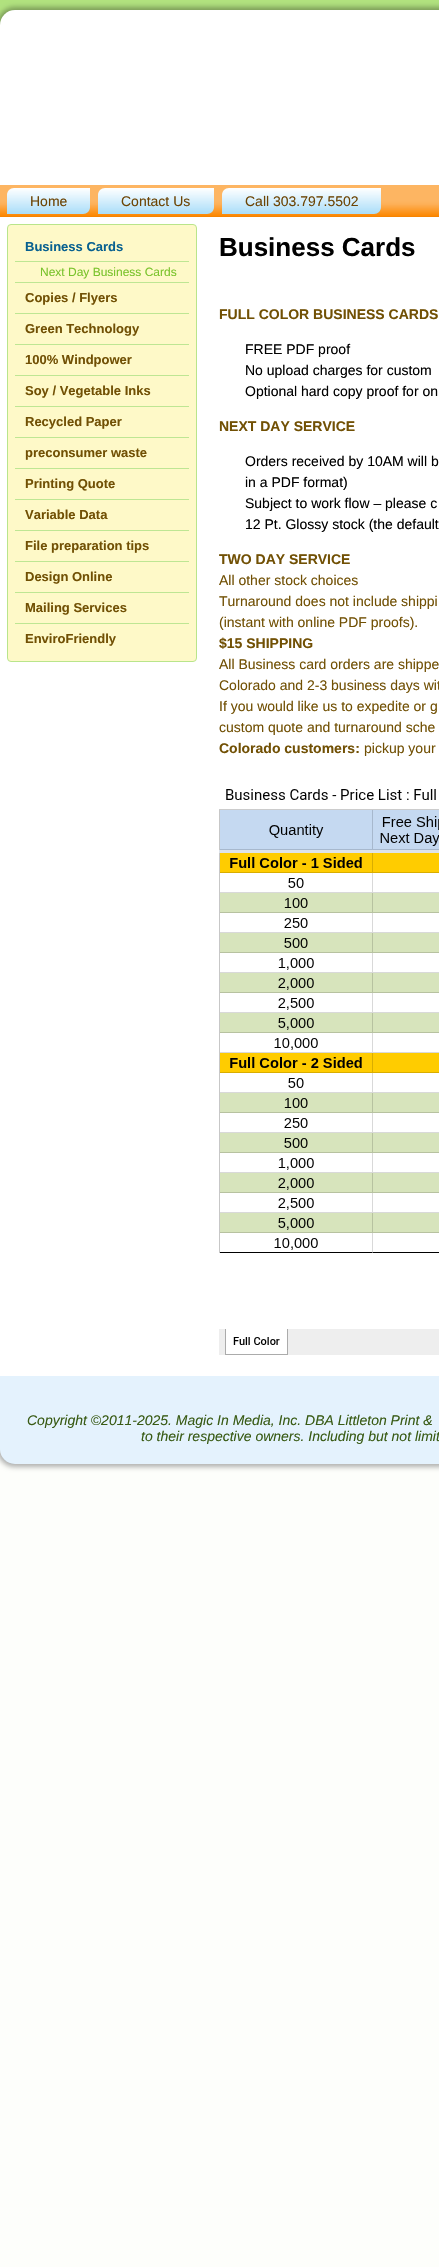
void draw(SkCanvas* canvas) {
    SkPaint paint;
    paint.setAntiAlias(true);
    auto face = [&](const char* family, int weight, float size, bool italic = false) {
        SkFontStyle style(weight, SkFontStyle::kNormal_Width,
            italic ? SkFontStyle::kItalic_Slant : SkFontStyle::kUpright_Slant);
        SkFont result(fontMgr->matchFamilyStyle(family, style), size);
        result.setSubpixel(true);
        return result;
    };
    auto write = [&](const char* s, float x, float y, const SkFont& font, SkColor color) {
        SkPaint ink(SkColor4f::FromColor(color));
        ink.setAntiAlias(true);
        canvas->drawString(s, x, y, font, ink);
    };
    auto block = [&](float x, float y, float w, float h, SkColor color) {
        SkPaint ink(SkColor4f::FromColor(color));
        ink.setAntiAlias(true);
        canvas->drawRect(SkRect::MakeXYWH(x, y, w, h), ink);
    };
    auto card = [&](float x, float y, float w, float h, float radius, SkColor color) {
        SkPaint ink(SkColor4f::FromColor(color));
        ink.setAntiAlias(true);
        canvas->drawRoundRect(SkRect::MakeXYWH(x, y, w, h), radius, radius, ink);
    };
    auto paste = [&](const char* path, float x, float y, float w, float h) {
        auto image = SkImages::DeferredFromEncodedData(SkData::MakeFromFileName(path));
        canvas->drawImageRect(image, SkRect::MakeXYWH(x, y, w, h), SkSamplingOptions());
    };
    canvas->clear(SK_ColorWHITE);
    {
        const SkColor colors[] = {SkColorSetRGB(180, 227, 130), SkColorSetRGB(253, 254, 251)};
        const float stops[] = {0, 0.44f};
        const SkPoint ends[] = {{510, 0}, {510, 2267}};
        paint.setShader(SkGradientShader::MakeLinear(ends, colors, stops, 2, SkTileMode::kClamp));
        paint.setAlpha(255);
    }
    canvas->drawRect(SkRect::MakeXYWH(0, 0, 439, 2267), paint);
    {
        const SkColor colors[] = {SkColorSetARGB(18, 146, 214, 74), SkColorSetARGB(51, 255, 255, 255)};
        const float stops[] = {0, 0.44f};
        const SkPoint ends[] = {{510, 0}, {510, 2267}};
        paint.setShader(SkGradientShader::MakeLinear(ends, colors, stops, 2, SkTileMode::kClamp));
        paint.setAlpha(255);
    }
    canvas->drawRect(SkRect::MakeXYWH(0, 0, 439, 720), paint);
    paint.setShader(nullptr);
    paint.setColor(SkColorSetARGB(77, 0, 0, 0));
    paint.setMaskFilter(SkMaskFilter::MakeBlur(kNormal_SkBlurStyle, 2.5f));
    canvas->drawRoundRect(SkRect::MakeXYWH(-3, 7, 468, 1460), 18, 18, paint);
    paint.setMaskFilter(nullptr);
    card(0, 10, 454, 1454, 15, SK_ColorWHITE);
    {
        const SkColor colors[] = {SkColorSetRGB(253, 181, 98), SkColorSetRGB(253, 181, 98), SkColorSetRGB(253, 176, 88), SkColorSetRGB(252, 136, 3), SkColorSetRGB(242, 130, 2)};
        const float stops[] = {0, 0.5f, 0.6f, 0.96f, 1};
        const SkPoint ends[] = {{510, 185}, {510, 217}};
        paint.setShader(SkGradientShader::MakeLinear(ends, colors, stops, 5, SkTileMode::kClamp));
        paint.setAlpha(255);
    }
    canvas->drawRect(SkRect::MakeXYWH(0, 185, 439, 32), paint);
    {
        const SkColor colors[] = {SK_ColorWHITE, SkColorSetRGB(169, 221, 249)};
        const float stops[] = {0, 1};
        const SkPoint ends[] = {{49, 188}, {49, 214}};
        paint.setShader(SkGradientShader::MakeLinear(ends, colors, stops, 2, SkTileMode::kClamp));
        paint.setAlpha(255);
    }
    canvas->drawPath(SkPathBuilder().moveTo(14, 188).lineTo(90, 188).lineTo(90, 207).cubicTo(90, 211, 87, 214, 83, 214).lineTo(7, 214).lineTo(7, 195).cubicTo(7, 191, 10, 188, 14, 188).close().detach(), paint);
    auto kFont1 = face("Liberation Sans", 400, 14);
    write("Home", 30, 206, kFont1, SkColorSetRGB(108, 68, 4));
    {
        const SkColor colors[] = {SK_ColorWHITE, SkColorSetRGB(169, 221, 249)};
        const float stops[] = {0, 1};
        const SkPoint ends[] = {{156, 188}, {156, 214}};
        paint.setShader(SkGradientShader::MakeLinear(ends, colors, stops, 2, SkTileMode::kClamp));
        paint.setAlpha(255);
    }
    canvas->drawPath(SkPathBuilder().moveTo(105, 188).lineTo(214, 188).lineTo(214, 207).cubicTo(214, 211, 211, 214, 207, 214).lineTo(98, 214).lineTo(98, 195).cubicTo(98, 191, 101, 188, 105, 188).close().detach(), paint);
    write("Contact Us", 121, 206, kFont1, SkColorSetRGB(108, 68, 4));
    {
        const SkColor colors[] = {SK_ColorWHITE, SkColorSetRGB(169, 221, 249)};
        const float stops[] = {0, 1};
        const SkPoint ends[] = {{302, 188}, {302, 214}};
        paint.setShader(SkGradientShader::MakeLinear(ends, colors, stops, 2, SkTileMode::kClamp));
        paint.setAlpha(255);
    }
    canvas->drawPath(SkPathBuilder().moveTo(229, 188).lineTo(381, 188).lineTo(381, 207).cubicTo(381, 211, 378, 214, 374, 214).lineTo(222, 214).lineTo(222, 195).cubicTo(222, 191, 225, 188, 229, 188).close().detach(), paint);
    write("Call 303.797.5502", 245, 206, kFont1, SkColorSetRGB(108, 68, 4));
    paint.setShader(nullptr);
    paint.setColor(SkColorSetRGB(254, 249, 200));
    canvas->drawRoundRect(SkRect::MakeXYWH(7.5f, 224.5f, 189, 437), 3.5f, 3.5f, paint);
    paint.setStyle(SkPaint::kStroke_Style);
    paint.setStrokeWidth(1);
    paint.setColor(SkColorSetRGB(185, 229, 139));
    canvas->drawRoundRect(SkRect::MakeXYWH(7.5f, 224.5f, 189, 437), 3.5f, 3.5f, paint);
    auto kFont2 = face("Liberation Sans", 700, 13);
    write("Business Cards", 25, 251, kFont2, SkColorSetRGB(9, 97, 144));
    block(15, 261, 174, 1, SkColorSetRGB(190, 230, 147));
    auto kFont3 = face("Liberation Sans", 400, 12);
    write("Next Day Business Cards", 40, 276, kFont3, SkColorSetRGB(122, 195, 44));
    block(15, 282, 174, 1, SkColorSetRGB(190, 230, 147));
    write("Copies / Flyers", 25, 302, kFont2, SkColorSetRGB(113, 80, 4));
    block(15, 313, 174, 1, SkColorSetRGB(190, 230, 147));
    write("Green Technology", 25, 333, kFont2, SkColorSetRGB(113, 80, 4));
    block(15, 344, 174, 1, SkColorSetRGB(190, 230, 147));
    write("100% Windpower", 25, 364, kFont2, SkColorSetRGB(113, 80, 4));
    block(15, 375, 174, 1, SkColorSetRGB(190, 230, 147));
    write("Soy / Vegetable Inks", 25, 395, kFont2, SkColorSetRGB(113, 80, 4));
    block(15, 406, 174, 1, SkColorSetRGB(190, 230, 147));
    write("Recycled Paper", 25, 426, kFont2, SkColorSetRGB(113, 80, 4));
    block(15, 437, 174, 1, SkColorSetRGB(190, 230, 147));
    write("preconsumer waste", 25, 457, kFont2, SkColorSetRGB(113, 80, 4));
    block(15, 468, 174, 1, SkColorSetRGB(190, 230, 147));
    write("Printing Quote", 25, 488, kFont2, SkColorSetRGB(113, 80, 4));
    block(15, 499, 174, 1, SkColorSetRGB(190, 230, 147));
    write("Variable Data", 25, 519, kFont2, SkColorSetRGB(113, 80, 4));
    block(15, 530, 174, 1, SkColorSetRGB(190, 230, 147));
    write("File preparation tips", 25, 550, kFont2, SkColorSetRGB(113, 80, 4));
    block(15, 561, 174, 1, SkColorSetRGB(190, 230, 147));
    write("Design Online", 25, 581, kFont2, SkColorSetRGB(113, 80, 4));
    block(15, 592, 174, 1, SkColorSetRGB(190, 230, 147));
    write("Mailing Services", 25, 612, kFont2, SkColorSetRGB(113, 80, 4));
    block(15, 623, 174, 1, SkColorSetRGB(190, 230, 147));
    write("EnviroFriendly", 25, 643, kFont2, SkColorSetRGB(113, 80, 4));
    auto kFont4 = face("Liberation Sans", 700, 26);
    write("Business Cards", 219, 256, kFont4, SK_ColorBLACK);
    auto kFont5 = face("Liberation Sans", 700, 14);
    write("FULL COLOR BUSINESS CARDS", 219, 319, kFont5, SkColorSetRGB(113, 80, 4));
    write("FREE PDF proof", 245, 354, kFont1, SK_ColorBLACK);
    write("No upload charges for custom", 245, 375, kFont1, SK_ColorBLACK);
    write("Optional hard copy proof for on", 245, 396, kFont1, SK_ColorBLACK);
    write("NEXT DAY SERVICE", 219, 431, kFont5, SkColorSetRGB(113, 80, 4));
    write("Orders received by 10AM will b", 245, 466, kFont1, SK_ColorBLACK);
    write("in a PDF format)", 245, 487, kFont1, SK_ColorBLACK);
    write("Subject to work flow – please c", 245, 508, kFont1, SK_ColorBLACK);
    write("12 Pt. Glossy stock (the default", 245, 529, kFont1, SK_ColorBLACK);
    write("TWO DAY SERVICE", 219, 564, kFont5, SkColorSetRGB(113, 80, 4));
    write("All other stock choices", 219, 585, kFont1, SkColorSetRGB(113, 80, 4));
    write("Turnaround does not include shippi", 219, 606, kFont1, SkColorSetRGB(113, 80, 4));
    write("(instant with online PDF proofs).", 219, 627, kFont1, SkColorSetRGB(113, 80, 4));
    write("$15 SHIPPING", 219, 648, kFont5, SkColorSetRGB(113, 80, 4));
    write("All Business card orders are shippe", 219, 669, kFont1, SkColorSetRGB(113, 80, 4));
    write("Colorado and 2-3 business days wit", 219, 690, kFont1, SkColorSetRGB(113, 80, 4));
    write("If you would like us to expedite or g", 219, 711, kFont1, SkColorSetRGB(113, 80, 4));
    write("custom quote and turnaround sche", 219, 732, kFont1, SkColorSetRGB(113, 80, 4));
    write("Colorado customers:", 219, 753, kFont5, SkColorSetRGB(113, 80, 4));
    write("pickup your", 364, 753, kFont1, SkColorSetRGB(113, 80, 4));
    paste("pic1.png", 219, 789, 220, 566);
    paint.setStyle(SkPaint::kFill_Style);
    paint.setColor(SkColorSetARGB(51, 121, 188, 246));
    canvas->drawPath(SkPathBuilder().moveTo(0, 1376).lineTo(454, 1376).lineTo(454, 1449).cubicTo(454, 1457.5f, 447.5f, 1464, 439, 1464).lineTo(15, 1464).cubicTo(6.5f, 1464, 0, 1457.5f, 0, 1449).close().detach(), paint);
    auto kFont6 = face("Liberation Sans", 400, 14, true);
    write("Copyright ©2011-2025. Magic In Media, Inc. DBA Littleton Print &", 27, 1425, kFont6, SkColorSetRGB(57, 91, 21));
    write("to their respective owners. Including but not limit", 141, 1441, kFont6, SkColorSetRGB(57, 91, 21));
}
